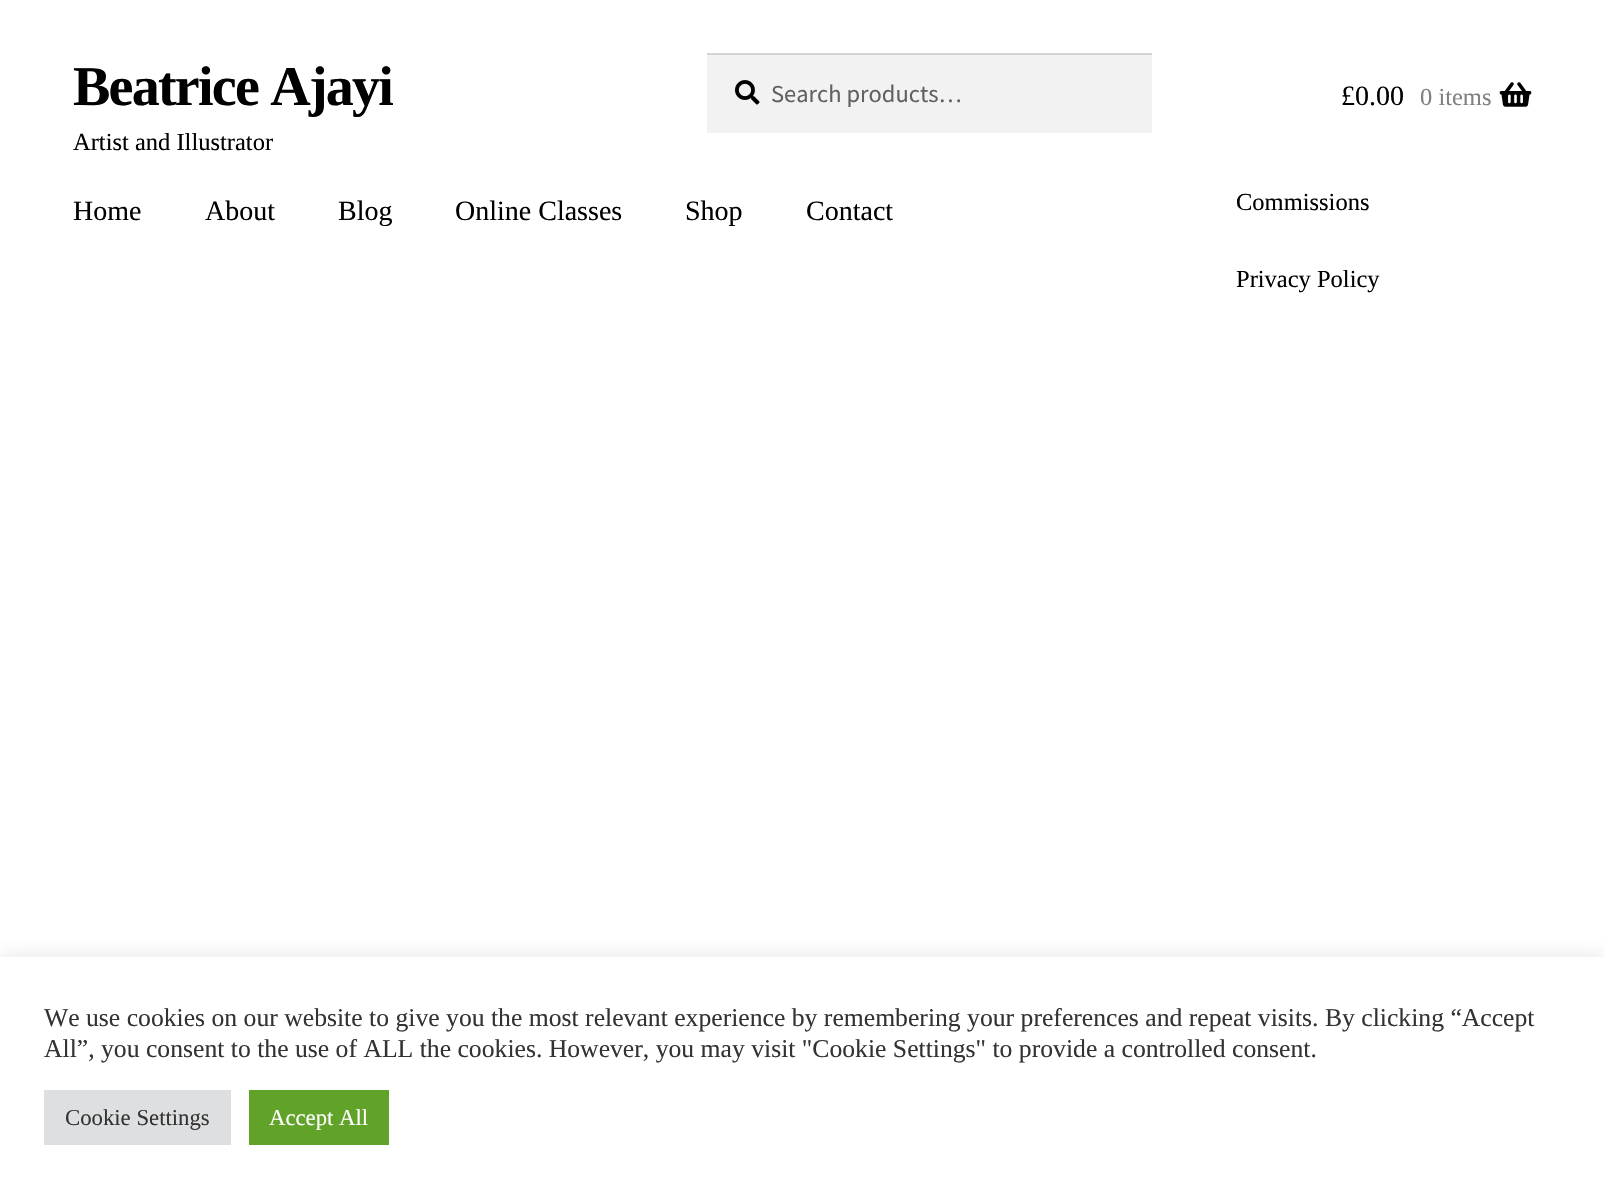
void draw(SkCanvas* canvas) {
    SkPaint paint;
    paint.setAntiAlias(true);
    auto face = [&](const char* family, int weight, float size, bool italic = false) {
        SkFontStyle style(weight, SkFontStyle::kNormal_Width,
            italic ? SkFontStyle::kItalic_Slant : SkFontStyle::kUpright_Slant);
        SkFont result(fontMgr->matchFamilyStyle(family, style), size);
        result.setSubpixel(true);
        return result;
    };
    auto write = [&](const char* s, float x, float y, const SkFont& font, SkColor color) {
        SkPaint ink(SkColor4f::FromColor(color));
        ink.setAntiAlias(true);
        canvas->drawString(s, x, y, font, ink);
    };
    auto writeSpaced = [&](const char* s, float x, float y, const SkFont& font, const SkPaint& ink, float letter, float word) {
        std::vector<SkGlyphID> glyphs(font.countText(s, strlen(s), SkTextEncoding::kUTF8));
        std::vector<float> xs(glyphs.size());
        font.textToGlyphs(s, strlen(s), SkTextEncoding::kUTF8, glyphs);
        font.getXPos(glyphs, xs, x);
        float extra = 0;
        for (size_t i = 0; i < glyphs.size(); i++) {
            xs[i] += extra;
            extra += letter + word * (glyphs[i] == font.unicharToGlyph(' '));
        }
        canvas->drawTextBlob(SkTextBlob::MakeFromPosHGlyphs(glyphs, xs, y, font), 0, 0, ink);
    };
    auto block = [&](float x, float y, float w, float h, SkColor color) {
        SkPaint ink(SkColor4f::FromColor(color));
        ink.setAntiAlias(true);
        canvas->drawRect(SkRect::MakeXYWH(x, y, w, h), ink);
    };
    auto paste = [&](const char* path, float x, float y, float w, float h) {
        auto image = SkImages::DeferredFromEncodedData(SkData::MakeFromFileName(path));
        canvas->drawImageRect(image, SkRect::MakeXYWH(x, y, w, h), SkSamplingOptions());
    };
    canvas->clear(SK_ColorWHITE);
    auto kFont1 = face("Liberation Serif", 700, 56);
    paint.setColor(SK_ColorBLACK);
    writeSpaced("Beatrice Ajayi", 73, 105, kFont1, paint, -1.75f, 0);
    auto kFont2 = face("Liberation Serif", 400, 24.5f);
    write("Artist and Illustrator", 73, 150, kFont2, SK_ColorBLACK);
    block(707, 55, 445, 78, SkColorSetRGB(242, 242, 242));
    paste("pic1.png", 735, 80, 25, 25);
    block(707, 53, 445, 2, SkColorSetRGB(212, 212, 212));
    auto kFont3 = face("Source Sans Pro", 400, 24.5f);
    write("Search products…", 771, 102, kFont3, SkColorSetRGB(97, 97, 97));
    auto kFont4 = face("Liberation Serif", 400, 28);
    write("£0.00", 1341, 105, kFont4, SK_ColorBLACK);
    write("0 items", 1420, 105, kFont2, SkColorSetRGB(128, 128, 128));
    paste("pic2.png", 1499, 82, 33, 25);
    write("Home", 73, 220, kFont4, SK_ColorBLACK);
    write("About", 205, 220, kFont4, SK_ColorBLACK);
    write("Blog", 338, 220, kFont4, SK_ColorBLACK);
    write("Online Classes", 455, 220, kFont4, SK_ColorBLACK);
    write("Shop", 685, 220, kFont4, SK_ColorBLACK);
    write("Contact", 806, 220, kFont4, SK_ColorBLACK);
    write("Commissions", 1236, 210, kFont2, SK_ColorBLACK);
    write("Privacy Policy", 1236, 287, kFont2, SK_ColorBLACK);
    paint.setColor(SkColorSetARGB(77, 172, 171, 171));
    paint.setMaskFilter(SkMaskFilter::MakeBlur(kNormal_SkBlurStyle, 9));
    canvas->drawRect(SkRect::MakeXYWH(0, 956, 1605, 239), paint);
    paint.setMaskFilter(nullptr);
    block(0, 957, 1604, 239, SK_ColorWHITE);
    auto kFont5 = face("Liberation Serif", 400, 25.67f);
    write("We use cookies on our website to give you the most relevant experience by remembering your preferences and repeat visits. By clicking “Accept", 44, 1026, kFont5, SkColorSetRGB(51, 51, 51));
    write("All”, you consent to the use of ALL the cookies. However, you may visit \"Cookie Settings\" to provide a controlled consent.", 44, 1057, kFont5, SkColorSetRGB(51, 51, 51));
    block(44, 1090, 187, 55, SkColorSetRGB(222, 223, 224));
    auto kFont6 = face("Liberation Serif", 400, 22.75f);
    write("Cookie Settings", 65, 1125, kFont6, SkColorSetRGB(51, 51, 51));
    block(249, 1090, 140, 55, SkColorSetRGB(97, 162, 41));
    write("Accept All", 269, 1125, kFont6, SK_ColorWHITE);
}
